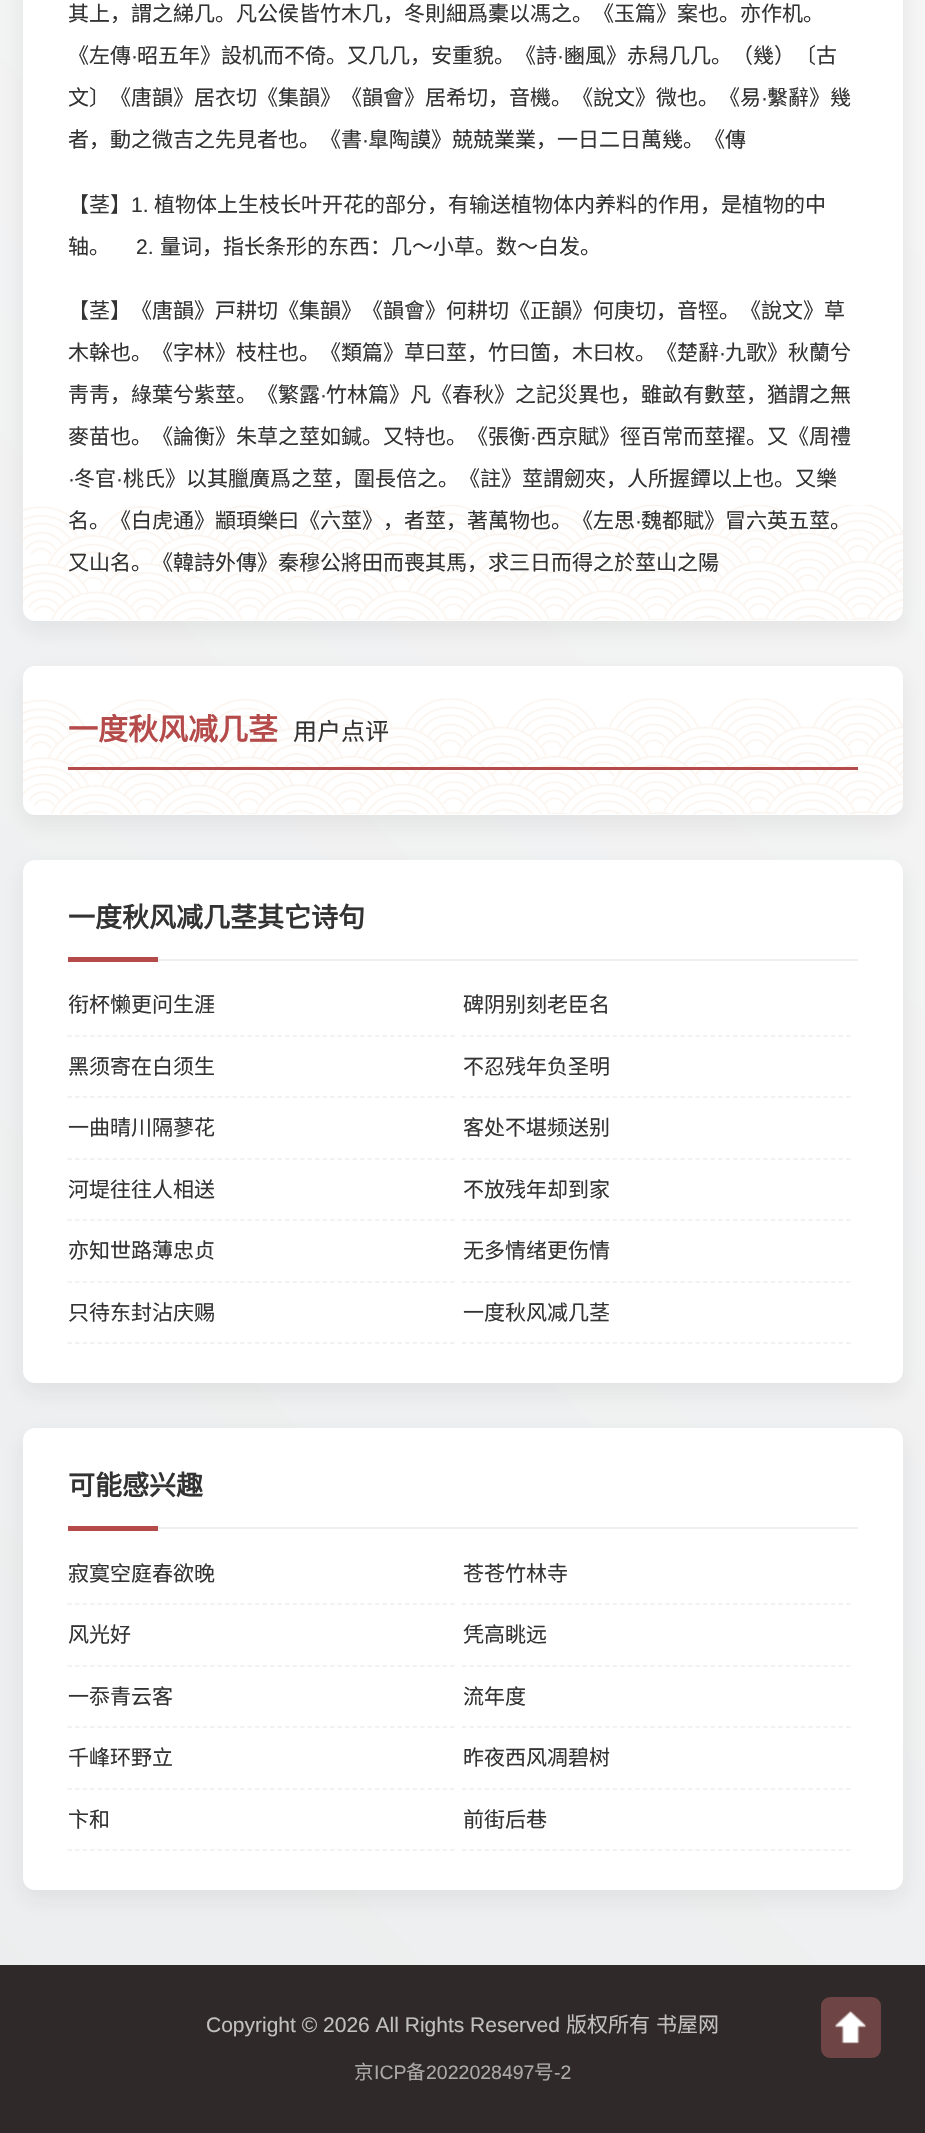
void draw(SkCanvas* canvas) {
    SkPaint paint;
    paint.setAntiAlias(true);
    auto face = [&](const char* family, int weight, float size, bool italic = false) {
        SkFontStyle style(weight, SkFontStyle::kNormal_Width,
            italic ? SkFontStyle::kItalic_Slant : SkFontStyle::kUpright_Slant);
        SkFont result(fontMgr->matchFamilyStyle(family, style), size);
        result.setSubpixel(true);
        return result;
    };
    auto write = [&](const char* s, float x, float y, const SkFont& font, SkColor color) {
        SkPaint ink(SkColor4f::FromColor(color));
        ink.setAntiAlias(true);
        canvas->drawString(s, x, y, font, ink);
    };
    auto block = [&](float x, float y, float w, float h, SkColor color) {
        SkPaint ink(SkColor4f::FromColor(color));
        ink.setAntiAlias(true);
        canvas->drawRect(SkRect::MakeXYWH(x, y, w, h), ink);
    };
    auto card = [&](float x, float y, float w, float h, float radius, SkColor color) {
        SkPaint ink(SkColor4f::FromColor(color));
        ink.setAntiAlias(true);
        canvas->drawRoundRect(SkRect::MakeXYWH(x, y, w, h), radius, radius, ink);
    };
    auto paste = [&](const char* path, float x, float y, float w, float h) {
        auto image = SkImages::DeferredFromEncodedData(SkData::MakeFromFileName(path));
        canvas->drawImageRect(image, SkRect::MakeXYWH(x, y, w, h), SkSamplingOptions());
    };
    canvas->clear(SK_ColorWHITE);
    {
        const SkColor colors[] = {SkColorSetRGB(253, 251, 251), SkColorSetRGB(235, 237, 238)};
        const float stops[] = {0, 1};
        const SkPoint ends[] = {{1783, -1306}, {-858, 1245}};
        paint.setShader(SkGradientShader::MakeLinear(ends, colors, stops, 2, SkTileMode::kClamp));
        paint.setAlpha(255);
    }
    canvas->drawRect(SkRect::MakeXYWH(0, 0, 925, 1965), paint);
    paint.setShader(nullptr);
    paint.setColor(SkColorSetARGB(20, 36, 37, 38));
    paint.setMaskFilter(SkMaskFilter::MakeBlur(kNormal_SkBlurStyle, 11));
    canvas->drawRoundRect(SkRect::MakeXYWH(23, -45, 880, 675), 12, 12, paint);
    paint.setMaskFilter(nullptr);
    card(23, -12, 880, 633, 12, SK_ColorWHITE);
    paste("pic1.png", 23, 505, 880, 115);
    auto kFont1 = face("Noto Sans CJK SC", 400, 21);
    write("其上，謂之綈几。凡公侯皆竹木几，冬則細爲橐以馮之。《玉篇》案也。亦作机。", 68, 21, kFont1, SkColorSetRGB(51, 51, 51));
    write("《左傳", 68, 63, kFont1, SkColorSetRGB(51, 51, 51));
    auto kFont2 = face("Liberation Sans", 400, 21);
    write("·", 131, 63, kFont2, SkColorSetRGB(51, 51, 51));
    write("昭五年》設机而不倚。又几几，安重貌。《詩", 137, 63, kFont1, SkColorSetRGB(51, 51, 51));
    write("·", 557, 63, kFont2, SkColorSetRGB(51, 51, 51));
    write("豳風》赤舄几几。（幾）〔古", 564, 63, kFont1, SkColorSetRGB(51, 51, 51));
    write("文〕《唐韻》居衣切《集韻》《韻會》居希切，音機。《說文》微也。《易", 68, 105, kFont1, SkColorSetRGB(51, 51, 51));
    write("·", 761, 105, kFont2, SkColorSetRGB(51, 51, 51));
    write("繫辭》幾", 767, 105, kFont1, SkColorSetRGB(51, 51, 51));
    write("者，動之微吉之先見者也。《書", 68, 147, kFont1, SkColorSetRGB(51, 51, 51));
    write("·", 362, 147, kFont2, SkColorSetRGB(51, 51, 51));
    write("臯陶謨》兢兢業業，一日二日萬幾。《傳", 368, 147, kFont1, SkColorSetRGB(51, 51, 51));
    write("【茎】", 68, 212, kFont1, SkColorSetRGB(51, 51, 51));
    write("1.", 131, 212, kFont2, SkColorSetRGB(51, 51, 51));
    write("植物体上生枝长叶开花的部分，有输送植物体内养料的作用，是植物的中", 154, 212, kFont1, SkColorSetRGB(51, 51, 51));
    write("轴。", 68, 254, kFont1, SkColorSetRGB(51, 51, 51));
    write("2.", 136, 254, kFont2, SkColorSetRGB(51, 51, 51));
    write("量词，指长条形的东西：几～小草。数～白发。", 160, 254, kFont1, SkColorSetRGB(51, 51, 51));
    write("【茎】《唐韻》戸耕切《集韻》《韻會》何耕切《正韻》何庚切，音牼。《說文》草", 68, 318, kFont1, SkColorSetRGB(51, 51, 51));
    write("木榦也。《字林》枝柱也。《類篇》草曰莖，竹曰箇，木曰枚。《楚辭", 68, 360, kFont1, SkColorSetRGB(51, 51, 51));
    write("·", 719, 360, kFont2, SkColorSetRGB(51, 51, 51));
    write("九歌》秋蘭兮", 725, 360, kFont1, SkColorSetRGB(51, 51, 51));
    write("靑靑，綠葉兮紫莖。《繁露", 68, 402, kFont1, SkColorSetRGB(51, 51, 51));
    write("·", 320, 402, kFont2, SkColorSetRGB(51, 51, 51));
    write("竹林篇》凡《春秋》之記災異也，雖畝有數莖，猶謂之無", 326, 402, kFont1, SkColorSetRGB(51, 51, 51));
    write("麥苗也。《論衡》朱草之莖如鍼。又特也。《張衡", 68, 444, kFont1, SkColorSetRGB(51, 51, 51));
    write("·", 530, 444, kFont2, SkColorSetRGB(51, 51, 51));
    write("西京賦》徑百常而莖擢。又《周禮", 536, 444, kFont1, SkColorSetRGB(51, 51, 51));
    write("·", 68, 486, kFont2, SkColorSetRGB(51, 51, 51));
    write("冬官", 74, 486, kFont1, SkColorSetRGB(51, 51, 51));
    write("·", 116, 486, kFont2, SkColorSetRGB(51, 51, 51));
    write("桃氏》以其臘廣爲之莖，圍長倍之。《註》莖謂劒夾，人所握鐔以上也。又樂", 123, 486, kFont1, SkColorSetRGB(51, 51, 51));
    write("名。《白虎通》顓頊樂曰《六莖》，者莖，著萬物也。《左思", 68, 528, kFont1, SkColorSetRGB(51, 51, 51));
    write("·", 635, 528, kFont2, SkColorSetRGB(51, 51, 51));
    write("魏都賦》冒六英五莖。", 641, 528, kFont1, SkColorSetRGB(51, 51, 51));
    write("又山名。《韓詩外傳》秦穆公將田而喪其馬，求三日而得之於莖山之陽", 68, 570, kFont1, SkColorSetRGB(51, 51, 51));
    paint.setMaskFilter(SkMaskFilter::MakeBlur(kNormal_SkBlurStyle, 11));
    canvas->drawRoundRect(SkRect::MakeXYWH(23, 675, 880, 149), 12, 12, paint);
    paint.setMaskFilter(nullptr);
    card(23, 666, 880, 149, 12, SK_ColorWHITE);
    paste("pic2.png", 23, 698, 880, 116);
    block(68, 767, 790, 3, SkColorSetRGB(181, 74, 74));
    auto kFont3 = face("Noto Sans CJK SC", 700, 30);
    write("一度秋风减几茎", 68, 740, kFont3, SkColorSetRGB(181, 74, 74));
    auto kFont4 = face("Noto Sans CJK SC", 400, 24);
    write("用户点评", 293, 740, kFont4, SkColorSetRGB(51, 51, 51));
    paint.setMaskFilter(SkMaskFilter::MakeBlur(kNormal_SkBlurStyle, 11));
    canvas->drawRoundRect(SkRect::MakeXYWH(23, 869, 880, 523), 12, 12, paint);
    paint.setMaskFilter(nullptr);
    card(23, 860, 880, 523, 12, SK_ColorWHITE);
    block(158, 959, 700, 2, SkColorSetRGB(238, 238, 238));
    auto kFont5 = face("Noto Sans CJK SC", 700, 27);
    write("一度秋风减几茎其它诗句", 68, 927, kFont5, SkColorSetRGB(51, 51, 51));
    block(68, 957, 90, 5, SkColorSetRGB(181, 74, 74));
    paint.setStyle(SkPaint::kStroke_Style);
    paint.setStrokeWidth(1.5f);
    paint.setColor(SkColorSetRGB(238, 238, 238));
    paint.setPathEffect(SkDashPathEffect::Make({{4.5f, 3}}, 0));
    canvas->drawPath(SkPathBuilder().moveTo(67.5f, 1036).lineTo(454.5f, 1036).detach(), paint);
    paint.setPathEffect(nullptr);
    write("衔杯懒更问生涯", 68, 1012, kFont1, SkColorSetRGB(51, 51, 51));
    paint.setPathEffect(SkDashPathEffect::Make({{4.5f, 3.03f}}, 0));
    canvas->drawPath(SkPathBuilder().moveTo(462, 1036).lineTo(850.5f, 1036).detach(), paint);
    paint.setPathEffect(nullptr);
    write("碑阴别刻老臣名", 463, 1012, kFont1, SkColorSetRGB(51, 51, 51));
    paint.setPathEffect(SkDashPathEffect::Make({{4.5f, 3}}, 0));
    canvas->drawPath(SkPathBuilder().moveTo(67.5f, 1097).lineTo(454.5f, 1097).detach(), paint);
    paint.setPathEffect(nullptr);
    write("黑须寄在白须生", 68, 1074, kFont1, SkColorSetRGB(51, 51, 51));
    paint.setPathEffect(SkDashPathEffect::Make({{4.5f, 3.03f}}, 0));
    canvas->drawPath(SkPathBuilder().moveTo(462, 1097).lineTo(850.5f, 1097).detach(), paint);
    paint.setPathEffect(nullptr);
    write("不忍残年负圣明", 463, 1074, kFont1, SkColorSetRGB(51, 51, 51));
    paint.setPathEffect(SkDashPathEffect::Make({{4.5f, 3}}, 0));
    canvas->drawPath(SkPathBuilder().moveTo(67.5f, 1159).lineTo(454.5f, 1159).detach(), paint);
    paint.setPathEffect(nullptr);
    write("一曲晴川隔蓼花", 68, 1135, kFont1, SkColorSetRGB(51, 51, 51));
    paint.setPathEffect(SkDashPathEffect::Make({{4.5f, 3.03f}}, 0));
    canvas->drawPath(SkPathBuilder().moveTo(462, 1159).lineTo(850.5f, 1159).detach(), paint);
    paint.setPathEffect(nullptr);
    write("客处不堪频送别", 463, 1135, kFont1, SkColorSetRGB(51, 51, 51));
    paint.setPathEffect(SkDashPathEffect::Make({{4.5f, 3}}, 0));
    canvas->drawPath(SkPathBuilder().moveTo(67.5f, 1220).lineTo(454.5f, 1220).detach(), paint);
    paint.setPathEffect(nullptr);
    write("河堤往往人相送", 68, 1197, kFont1, SkColorSetRGB(51, 51, 51));
    paint.setPathEffect(SkDashPathEffect::Make({{4.5f, 3.03f}}, 0));
    canvas->drawPath(SkPathBuilder().moveTo(462, 1220).lineTo(850.5f, 1220).detach(), paint);
    paint.setPathEffect(nullptr);
    write("不放残年却到家", 463, 1197, kFont1, SkColorSetRGB(51, 51, 51));
    paint.setPathEffect(SkDashPathEffect::Make({{4.5f, 3}}, 0));
    canvas->drawPath(SkPathBuilder().moveTo(67.5f, 1282).lineTo(454.5f, 1282).detach(), paint);
    paint.setPathEffect(nullptr);
    write("亦知世路薄忠贞", 68, 1258, kFont1, SkColorSetRGB(51, 51, 51));
    paint.setPathEffect(SkDashPathEffect::Make({{4.5f, 3.03f}}, 0));
    canvas->drawPath(SkPathBuilder().moveTo(462, 1282).lineTo(850.5f, 1282).detach(), paint);
    paint.setPathEffect(nullptr);
    write("无多情绪更伤情", 463, 1258, kFont1, SkColorSetRGB(51, 51, 51));
    paint.setPathEffect(SkDashPathEffect::Make({{4.5f, 3}}, 0));
    canvas->drawPath(SkPathBuilder().moveTo(67.5f, 1343).lineTo(454.5f, 1343).detach(), paint);
    paint.setPathEffect(nullptr);
    write("只待东封沾庆赐", 68, 1320, kFont1, SkColorSetRGB(51, 51, 51));
    paint.setPathEffect(SkDashPathEffect::Make({{4.5f, 3.03f}}, 0));
    canvas->drawPath(SkPathBuilder().moveTo(462, 1343).lineTo(850.5f, 1343).detach(), paint);
    paint.setPathEffect(nullptr);
    write("一度秋风减几茎", 463, 1320, kFont1, SkColorSetRGB(51, 51, 51));
    paint.setStyle(SkPaint::kFill_Style);
    paint.setColor(SkColorSetARGB(20, 36, 37, 38));
    paint.setMaskFilter(SkMaskFilter::MakeBlur(kNormal_SkBlurStyle, 11));
    canvas->drawRoundRect(SkRect::MakeXYWH(23, 1437, 880, 462), 12, 12, paint);
    paint.setMaskFilter(nullptr);
    card(23, 1428, 880, 462, 12, SK_ColorWHITE);
    block(158, 1527, 700, 2, SkColorSetRGB(238, 238, 238));
    write("可能感兴趣", 68, 1495, kFont5, SkColorSetRGB(51, 51, 51));
    block(68, 1526, 90, 5, SkColorSetRGB(181, 74, 74));
    paint.setStyle(SkPaint::kStroke_Style);
    paint.setColor(SkColorSetRGB(238, 238, 238));
    paint.setPathEffect(SkDashPathEffect::Make({{4.5f, 3}}, 0));
    canvas->drawPath(SkPathBuilder().moveTo(67.5f, 1604).lineTo(454.5f, 1604).detach(), paint);
    paint.setPathEffect(nullptr);
    write("寂寞空庭春欲晚", 68, 1581, kFont1, SkColorSetRGB(51, 51, 51));
    paint.setPathEffect(SkDashPathEffect::Make({{4.5f, 3.03f}}, 0));
    canvas->drawPath(SkPathBuilder().moveTo(462, 1604).lineTo(850.5f, 1604).detach(), paint);
    paint.setPathEffect(nullptr);
    write("苍苍竹林寺", 463, 1581, kFont1, SkColorSetRGB(51, 51, 51));
    paint.setPathEffect(SkDashPathEffect::Make({{4.5f, 3}}, 0));
    canvas->drawPath(SkPathBuilder().moveTo(67.5f, 1666).lineTo(454.5f, 1666).detach(), paint);
    paint.setPathEffect(nullptr);
    write("风光好", 68, 1642, kFont1, SkColorSetRGB(51, 51, 51));
    paint.setPathEffect(SkDashPathEffect::Make({{4.5f, 3.03f}}, 0));
    canvas->drawPath(SkPathBuilder().moveTo(462, 1666).lineTo(850.5f, 1666).detach(), paint);
    paint.setPathEffect(nullptr);
    write("凭高眺远", 463, 1642, kFont1, SkColorSetRGB(51, 51, 51));
    paint.setPathEffect(SkDashPathEffect::Make({{4.5f, 3}}, 0));
    canvas->drawPath(SkPathBuilder().moveTo(67.5f, 1727).lineTo(454.5f, 1727).detach(), paint);
    paint.setPathEffect(nullptr);
    write("一忝青云客", 68, 1704, kFont1, SkColorSetRGB(51, 51, 51));
    paint.setPathEffect(SkDashPathEffect::Make({{4.5f, 3.03f}}, 0));
    canvas->drawPath(SkPathBuilder().moveTo(462, 1727).lineTo(850.5f, 1727).detach(), paint);
    paint.setPathEffect(nullptr);
    write("流年度", 463, 1704, kFont1, SkColorSetRGB(51, 51, 51));
    paint.setPathEffect(SkDashPathEffect::Make({{4.5f, 3}}, 0));
    canvas->drawPath(SkPathBuilder().moveTo(67.5f, 1789).lineTo(454.5f, 1789).detach(), paint);
    paint.setPathEffect(nullptr);
    write("千峰环野立", 68, 1765, kFont1, SkColorSetRGB(51, 51, 51));
    paint.setPathEffect(SkDashPathEffect::Make({{4.5f, 3.03f}}, 0));
    canvas->drawPath(SkPathBuilder().moveTo(462, 1789).lineTo(850.5f, 1789).detach(), paint);
    paint.setPathEffect(nullptr);
    write("昨夜西风凋碧树", 463, 1765, kFont1, SkColorSetRGB(51, 51, 51));
    paint.setPathEffect(SkDashPathEffect::Make({{4.5f, 3}}, 0));
    canvas->drawPath(SkPathBuilder().moveTo(67.5f, 1850).lineTo(454.5f, 1850).detach(), paint);
    paint.setPathEffect(nullptr);
    write("卞和", 68, 1827, kFont1, SkColorSetRGB(51, 51, 51));
    paint.setPathEffect(SkDashPathEffect::Make({{4.5f, 3.03f}}, 0));
    canvas->drawPath(SkPathBuilder().moveTo(462, 1850).lineTo(850.5f, 1850).detach(), paint);
    paint.setPathEffect(nullptr);
    write("前街后巷", 463, 1827, kFont1, SkColorSetRGB(51, 51, 51));
    block(0, 1965, 925, 168, SkColorSetRGB(47, 41, 41));
    write("Copyright © 2026 All Rights Reserved", 206, 2032, kFont2, SkColorSetRGB(193, 191, 191));
    write("版权所有", 566, 2032, kFont1, SkColorSetRGB(193, 191, 191));
    write("书屋网", 656, 2032, kFont1, SkColorSetRGB(193, 191, 191));
    auto kFont6 = face("Noto Sans CJK SC", 400, 19.5f);
    write("京", 354, 2079, kFont6, SkColorSetRGB(172, 169, 169));
    auto kFont7 = face("Liberation Sans", 400, 19.5f);
    write("ICP", 374, 2079, kFont7, SkColorSetRGB(172, 169, 169));
    write("备", 406, 2079, kFont6, SkColorSetRGB(172, 169, 169));
    write("2022028497", 426, 2079, kFont7, SkColorSetRGB(172, 169, 169));
    write("号", 534, 2079, kFont6, SkColorSetRGB(172, 169, 169));
    write("-2", 554, 2079, kFont7, SkColorSetRGB(172, 169, 169));
    card(821, 1997, 60, 61, 9, SkColorSetRGB(111, 68, 68));
    paste("pic3.png", 835, 2011, 31, 33);
}
